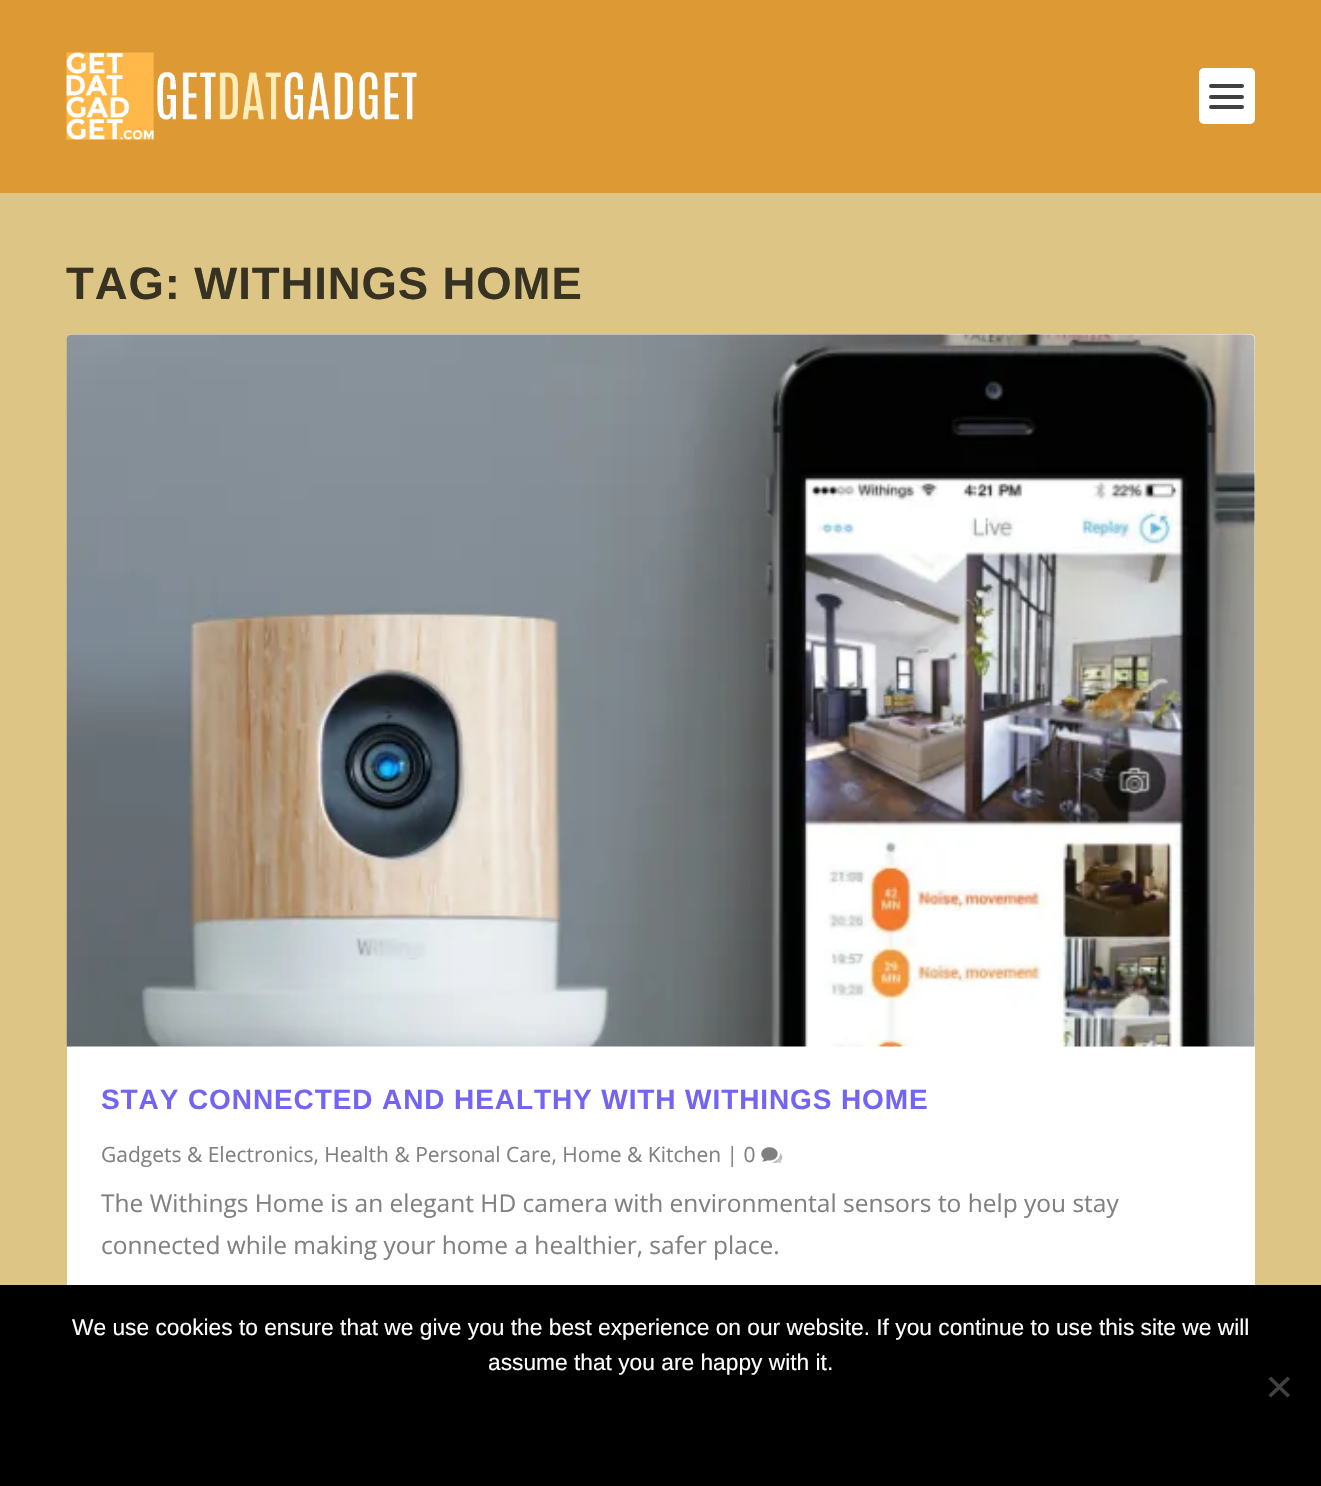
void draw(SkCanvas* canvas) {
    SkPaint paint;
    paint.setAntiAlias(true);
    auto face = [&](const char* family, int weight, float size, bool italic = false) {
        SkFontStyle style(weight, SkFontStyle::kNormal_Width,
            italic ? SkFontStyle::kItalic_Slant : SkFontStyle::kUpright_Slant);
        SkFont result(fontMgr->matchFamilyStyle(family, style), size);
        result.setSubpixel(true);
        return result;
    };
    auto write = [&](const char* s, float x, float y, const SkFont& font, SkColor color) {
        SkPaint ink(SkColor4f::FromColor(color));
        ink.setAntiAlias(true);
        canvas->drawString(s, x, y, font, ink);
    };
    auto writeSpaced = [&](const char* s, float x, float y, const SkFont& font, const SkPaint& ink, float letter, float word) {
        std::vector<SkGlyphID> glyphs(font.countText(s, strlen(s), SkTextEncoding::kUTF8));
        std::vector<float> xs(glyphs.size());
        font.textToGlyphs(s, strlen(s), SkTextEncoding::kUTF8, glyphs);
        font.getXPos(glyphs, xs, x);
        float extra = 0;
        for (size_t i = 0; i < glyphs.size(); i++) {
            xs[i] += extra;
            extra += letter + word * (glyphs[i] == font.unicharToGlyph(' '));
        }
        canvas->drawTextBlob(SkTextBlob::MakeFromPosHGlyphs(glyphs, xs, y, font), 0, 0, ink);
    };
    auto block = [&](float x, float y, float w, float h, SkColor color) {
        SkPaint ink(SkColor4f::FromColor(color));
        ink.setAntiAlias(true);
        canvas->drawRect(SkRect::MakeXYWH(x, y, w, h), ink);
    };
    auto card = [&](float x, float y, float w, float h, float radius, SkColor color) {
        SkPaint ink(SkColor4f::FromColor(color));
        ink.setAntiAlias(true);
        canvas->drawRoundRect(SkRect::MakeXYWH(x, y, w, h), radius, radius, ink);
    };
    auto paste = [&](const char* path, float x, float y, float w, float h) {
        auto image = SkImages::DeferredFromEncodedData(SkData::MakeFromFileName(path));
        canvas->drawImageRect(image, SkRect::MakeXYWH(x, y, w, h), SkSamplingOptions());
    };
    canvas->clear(SkColorSetRGB(221, 198, 133));
    block(0, 0, 1321, 193, SkColorSetRGB(221, 153, 51));
    paste("pic1.png", 66, 52, 351, 88);
    card(1199, 68, 56, 56, 5, SK_ColorWHITE);
    card(1209, 84, 35, 4, 2, SkColorSetRGB(64, 64, 64));
    card(1209, 95, 35, 4, 2, SkColorSetRGB(64, 64, 64));
    card(1209, 105, 35, 4, 2, SkColorSetRGB(64, 64, 64));
    auto kFont1 = face("Liberation Sans", 700, 45.5f);
    paint.setColor(SkColorSetRGB(55, 50, 33));
    writeSpaced("TAG: WITHINGS HOME", 66, 299, kFont1, paint, 0.9f, 0);
    card(67, 334, 1188, 1131, 5, SK_ColorWHITE);
    paste("pic2.png", 66, 334, 1189, 713);
    auto kFont2 = face("Liberation Sans", 700, 28);
    paint.setColor(SkColorSetRGB(116, 100, 242));
    writeSpaced("STAY CONNECTED AND HEALTHY WITH WITHINGS HOME", 101, 1109, kFont2, paint, 0.9f, 0);
    auto kFont3 = face("Open Sans", 400, 21);
    write("Gadgets & Electronics, Health & Personal Care, Home & Kitchen | 0", 101, 1162, kFont3, SkColorSetRGB(128, 128, 128));
    paste("pic3.png", 761, 1147, 22, 16);
    auto kFont4 = face("Open Sans", 400, 24.5f);
    write("The Withings Home is an elegant HD camera with environmental sensors to help you stay", 101, 1212, kFont4, SkColorSetRGB(128, 128, 128));
    write("connected while making your home a healthier, safer place.", 101, 1254, kFont4, SkColorSetRGB(128, 128, 128));
    block(0, 1285, 1321, 201, SK_ColorBLACK);
    auto kFont5 = face("Liberation Sans", 400, 22.75f);
    write("We use cookies to ensure that we give you the best experience on our website. If you continue to use this site we will", 72, 1335, kFont5, SK_ColorWHITE);
    write("assume that you are happy with it.", 488, 1370, kFont5, SK_ColorWHITE);
    paint.setColor(SkColorSetRGB(64, 64, 64));
    canvas->drawPath(SkPathBuilder().moveTo(1287.5f, 1376.5f).lineTo(1290, 1379).lineTo(1271, 1397.5f).lineTo(1268.5f, 1395).close().detach(), paint);
    canvas->drawPath(SkPathBuilder().moveTo(1268.5f, 1379).lineTo(1271, 1376.5f).lineTo(1290, 1395).lineTo(1287.5f, 1397.5f).close().detach(), paint);
}
